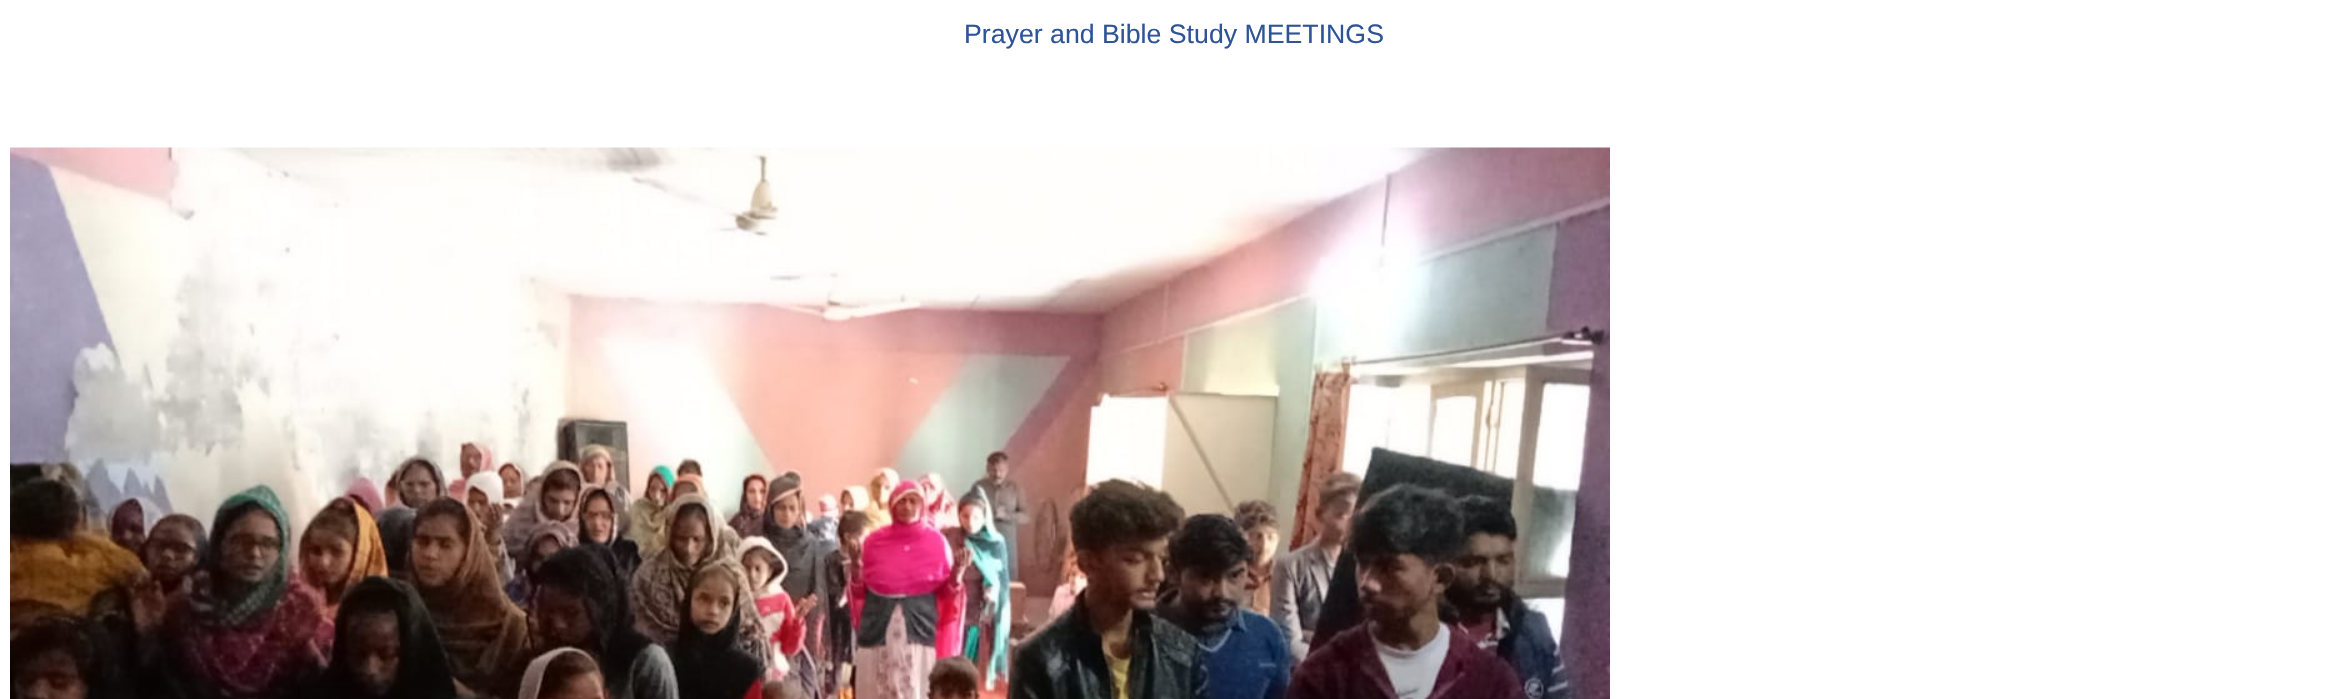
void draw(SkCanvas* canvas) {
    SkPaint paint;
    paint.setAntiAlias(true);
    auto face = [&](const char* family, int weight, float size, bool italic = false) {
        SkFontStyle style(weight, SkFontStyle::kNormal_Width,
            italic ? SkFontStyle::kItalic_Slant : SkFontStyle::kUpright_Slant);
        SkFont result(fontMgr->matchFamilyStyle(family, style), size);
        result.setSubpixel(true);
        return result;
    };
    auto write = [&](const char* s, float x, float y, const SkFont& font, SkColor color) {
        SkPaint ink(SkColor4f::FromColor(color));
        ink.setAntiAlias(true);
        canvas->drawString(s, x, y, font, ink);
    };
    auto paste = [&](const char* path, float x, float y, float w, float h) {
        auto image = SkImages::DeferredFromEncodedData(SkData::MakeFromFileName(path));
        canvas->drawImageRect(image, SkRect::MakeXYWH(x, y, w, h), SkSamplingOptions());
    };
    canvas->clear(SK_ColorWHITE);
    auto kFont1 = face("Liberation Sans", 400, 26.7f);
    write("Prayer and Bible Study MEETINGS", 964, 43, kFont1, SkColorSetRGB(47, 84, 150));
    paste("pic1.png", 10, 147, 1600, 552);
}
